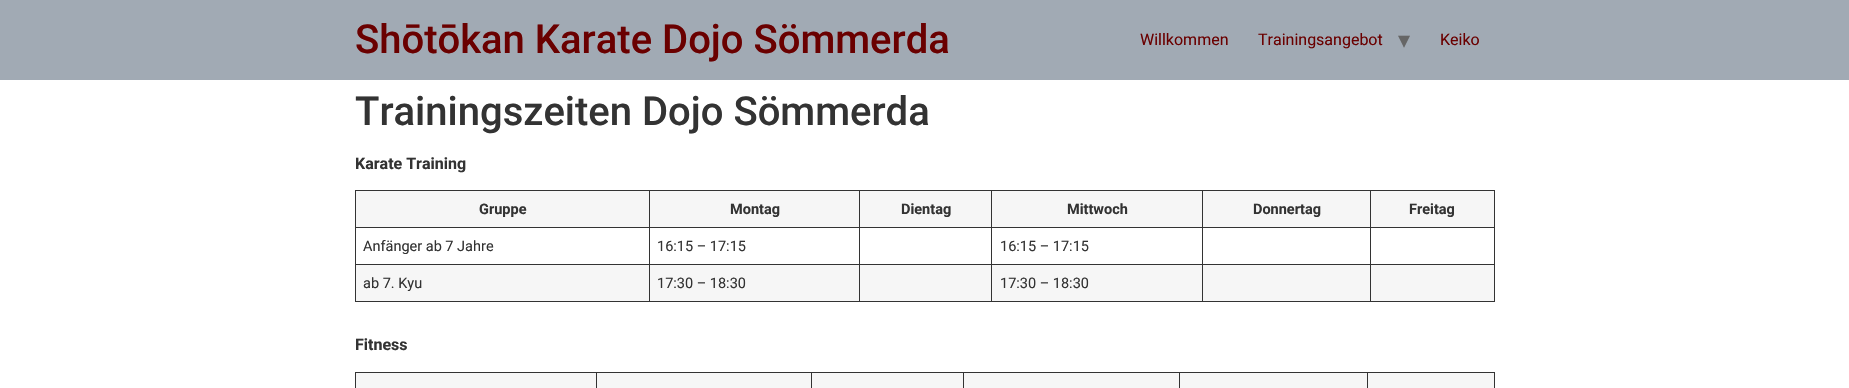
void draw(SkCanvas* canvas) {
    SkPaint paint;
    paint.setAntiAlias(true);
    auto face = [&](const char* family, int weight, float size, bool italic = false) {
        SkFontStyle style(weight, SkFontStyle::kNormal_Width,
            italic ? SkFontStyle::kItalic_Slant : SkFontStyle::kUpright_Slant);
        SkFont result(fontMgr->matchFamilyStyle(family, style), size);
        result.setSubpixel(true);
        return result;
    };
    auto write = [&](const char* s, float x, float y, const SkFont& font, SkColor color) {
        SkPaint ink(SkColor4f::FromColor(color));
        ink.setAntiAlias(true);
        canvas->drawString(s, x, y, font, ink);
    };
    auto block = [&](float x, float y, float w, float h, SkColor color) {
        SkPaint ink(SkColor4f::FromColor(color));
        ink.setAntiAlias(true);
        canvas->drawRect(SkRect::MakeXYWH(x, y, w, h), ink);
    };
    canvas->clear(SK_ColorWHITE);
    block(0, 0, 1849, 80, SkColorSetRGB(161, 170, 180));
    auto kFont1 = face("Roboto", 500, 40);
    write("Shōtōkan Karate Dojo Sömmerda", 355, 53, kFont1, SkColorSetRGB(106, 0, 0));
    auto kFont2 = face("Roboto", 400, 16);
    write("Willkommen", 1140, 45, kFont2, SkColorSetRGB(106, 0, 0));
    write("Trainingsangebot", 1258, 45, kFont2, SkColorSetRGB(106, 0, 0));
    auto kFont3 = face("DejaVu Sans", 400, 24);
    write("▾", 1398, 48, kFont3, SkColorSetRGB(102, 102, 102));
    write("Keiko", 1440, 45, kFont2, SkColorSetRGB(106, 0, 0));
    write("Trainingszeiten Dojo Sömmerda", 355, 125, kFont1, SkColorSetRGB(51, 51, 51));
    auto kFont4 = face("Roboto", 700, 16);
    write("Karate Training", 355, 169, kFont4, SkColorSetRGB(51, 51, 51));
    block(356, 191, 293, 36, SkColorSetRGB(246, 246, 246));
    block(1370, 190, 125, 1, SkColorSetRGB(51, 51, 51));
    block(1370, 227, 125, 1, SkColorSetRGB(51, 51, 51));
    block(1370, 264, 125, 1, SkColorSetRGB(51, 51, 51));
    block(1494, 264, 1, 38, SkColorSetRGB(51, 51, 51));
    block(1370, 301, 125, 1, SkColorSetRGB(51, 51, 51));
    block(1370, 264, 1, 38, SkColorSetRGB(51, 51, 51));
    block(1202, 264, 169, 1, SkColorSetRGB(51, 51, 51));
    block(1370, 227, 1, 38, SkColorSetRGB(51, 51, 51));
    block(1202, 227, 169, 1, SkColorSetRGB(51, 51, 51));
    block(1370, 190, 1, 38, SkColorSetRGB(51, 51, 51));
    block(1202, 190, 169, 1, SkColorSetRGB(51, 51, 51));
    block(1202, 301, 169, 1, SkColorSetRGB(51, 51, 51));
    block(1202, 264, 1, 38, SkColorSetRGB(51, 51, 51));
    block(991, 264, 212, 1, SkColorSetRGB(51, 51, 51));
    block(1202, 227, 1, 38, SkColorSetRGB(51, 51, 51));
    block(991, 227, 212, 1, SkColorSetRGB(51, 51, 51));
    block(1202, 190, 1, 38, SkColorSetRGB(51, 51, 51));
    block(991, 190, 212, 1, SkColorSetRGB(51, 51, 51));
    block(991, 301, 212, 1, SkColorSetRGB(51, 51, 51));
    block(991, 264, 1, 38, SkColorSetRGB(51, 51, 51));
    block(859, 264, 133, 1, SkColorSetRGB(51, 51, 51));
    block(991, 227, 1, 38, SkColorSetRGB(51, 51, 51));
    block(859, 227, 133, 1, SkColorSetRGB(51, 51, 51));
    block(991, 190, 1, 38, SkColorSetRGB(51, 51, 51));
    block(859, 190, 133, 1, SkColorSetRGB(51, 51, 51));
    block(859, 301, 133, 1, SkColorSetRGB(51, 51, 51));
    block(859, 264, 1, 38, SkColorSetRGB(51, 51, 51));
    block(649, 264, 211, 1, SkColorSetRGB(51, 51, 51));
    block(859, 227, 1, 38, SkColorSetRGB(51, 51, 51));
    block(649, 227, 211, 1, SkColorSetRGB(51, 51, 51));
    block(859, 190, 1, 38, SkColorSetRGB(51, 51, 51));
    block(649, 190, 211, 1, SkColorSetRGB(51, 51, 51));
    block(649, 301, 211, 1, SkColorSetRGB(51, 51, 51));
    block(649, 264, 1, 38, SkColorSetRGB(51, 51, 51));
    block(355, 264, 295, 1, SkColorSetRGB(51, 51, 51));
    block(649, 227, 1, 38, SkColorSetRGB(51, 51, 51));
    block(355, 227, 295, 1, SkColorSetRGB(51, 51, 51));
    block(649, 190, 1, 38, SkColorSetRGB(51, 51, 51));
    block(355, 190, 295, 1, SkColorSetRGB(51, 51, 51));
    block(355, 301, 295, 1, SkColorSetRGB(51, 51, 51));
    block(355, 264, 1, 38, SkColorSetRGB(51, 51, 51));
    block(355, 227, 1, 38, SkColorSetRGB(51, 51, 51));
    block(355, 190, 1, 38, SkColorSetRGB(51, 51, 51));
    auto kFont5 = face("Roboto", 700, 14.5f);
    write("Gruppe", 479, 214, kFont5, SkColorSetRGB(51, 51, 51));
    block(650, 191, 209, 36, SkColorSetRGB(246, 246, 246));
    write("Montag", 730, 214, kFont5, SkColorSetRGB(51, 51, 51));
    block(860, 191, 131, 36, SkColorSetRGB(246, 246, 246));
    write("Dientag", 901, 214, kFont5, SkColorSetRGB(51, 51, 51));
    block(992, 191, 210, 36, SkColorSetRGB(246, 246, 246));
    write("Mittwoch", 1067, 214, kFont5, SkColorSetRGB(51, 51, 51));
    block(1203, 191, 167, 36, SkColorSetRGB(246, 246, 246));
    write("Donnertag", 1253, 214, kFont5, SkColorSetRGB(51, 51, 51));
    block(1371, 191, 123, 36, SkColorSetRGB(246, 246, 246));
    block(1494, 227, 1, 38, SkColorSetRGB(51, 51, 51));
    block(1494, 190, 1, 38, SkColorSetRGB(51, 51, 51));
    write("Freitag", 1409, 214, kFont5, SkColorSetRGB(51, 51, 51));
    auto kFont6 = face("Roboto", 400, 14.5f);
    write("Anfänger ab 7 Jahre", 363, 251, kFont6, SkColorSetRGB(51, 51, 51));
    write("16:15 – 17:15", 657, 251, kFont6, SkColorSetRGB(51, 51, 51));
    write("16:15 – 17:15", 1000, 251, kFont6, SkColorSetRGB(51, 51, 51));
    block(356, 265, 293, 36, SkColorSetRGB(246, 246, 246));
    write("ab 7. Kyu", 363, 288, kFont6, SkColorSetRGB(51, 51, 51));
    block(650, 265, 209, 36, SkColorSetRGB(246, 246, 246));
    write("17:30 – 18:30", 657, 288, kFont6, SkColorSetRGB(51, 51, 51));
    block(860, 265, 131, 36, SkColorSetRGB(246, 246, 246));
    block(992, 265, 210, 36, SkColorSetRGB(246, 246, 246));
    write("17:30 – 18:30", 1000, 288, kFont6, SkColorSetRGB(51, 51, 51));
    block(1203, 265, 167, 36, SkColorSetRGB(246, 246, 246));
    block(1371, 265, 123, 36, SkColorSetRGB(246, 246, 246));
    write("Fitness", 355, 350, kFont4, SkColorSetRGB(51, 51, 51));
    block(356, 373, 240, 15, SkColorSetRGB(246, 246, 246));
    block(1367, 372, 128, 1, SkColorSetRGB(51, 51, 51));
    block(1367, 372, 1, 16, SkColorSetRGB(51, 51, 51));
    block(1179, 372, 189, 1, SkColorSetRGB(51, 51, 51));
    block(1179, 372, 1, 16, SkColorSetRGB(51, 51, 51));
    block(963, 372, 217, 1, SkColorSetRGB(51, 51, 51));
    block(963, 372, 1, 16, SkColorSetRGB(51, 51, 51));
    block(811, 372, 153, 1, SkColorSetRGB(51, 51, 51));
    block(811, 372, 1, 16, SkColorSetRGB(51, 51, 51));
    block(596, 372, 216, 1, SkColorSetRGB(51, 51, 51));
    block(596, 372, 1, 16, SkColorSetRGB(51, 51, 51));
    block(355, 372, 242, 1, SkColorSetRGB(51, 51, 51));
    block(355, 372, 1, 16, SkColorSetRGB(51, 51, 51));
    block(597, 373, 214, 15, SkColorSetRGB(246, 246, 246));
    block(812, 373, 151, 15, SkColorSetRGB(246, 246, 246));
    block(964, 373, 215, 15, SkColorSetRGB(246, 246, 246));
    block(1180, 373, 187, 15, SkColorSetRGB(246, 246, 246));
    block(1368, 373, 126, 15, SkColorSetRGB(246, 246, 246));
    block(1494, 372, 1, 16, SkColorSetRGB(51, 51, 51));
}
